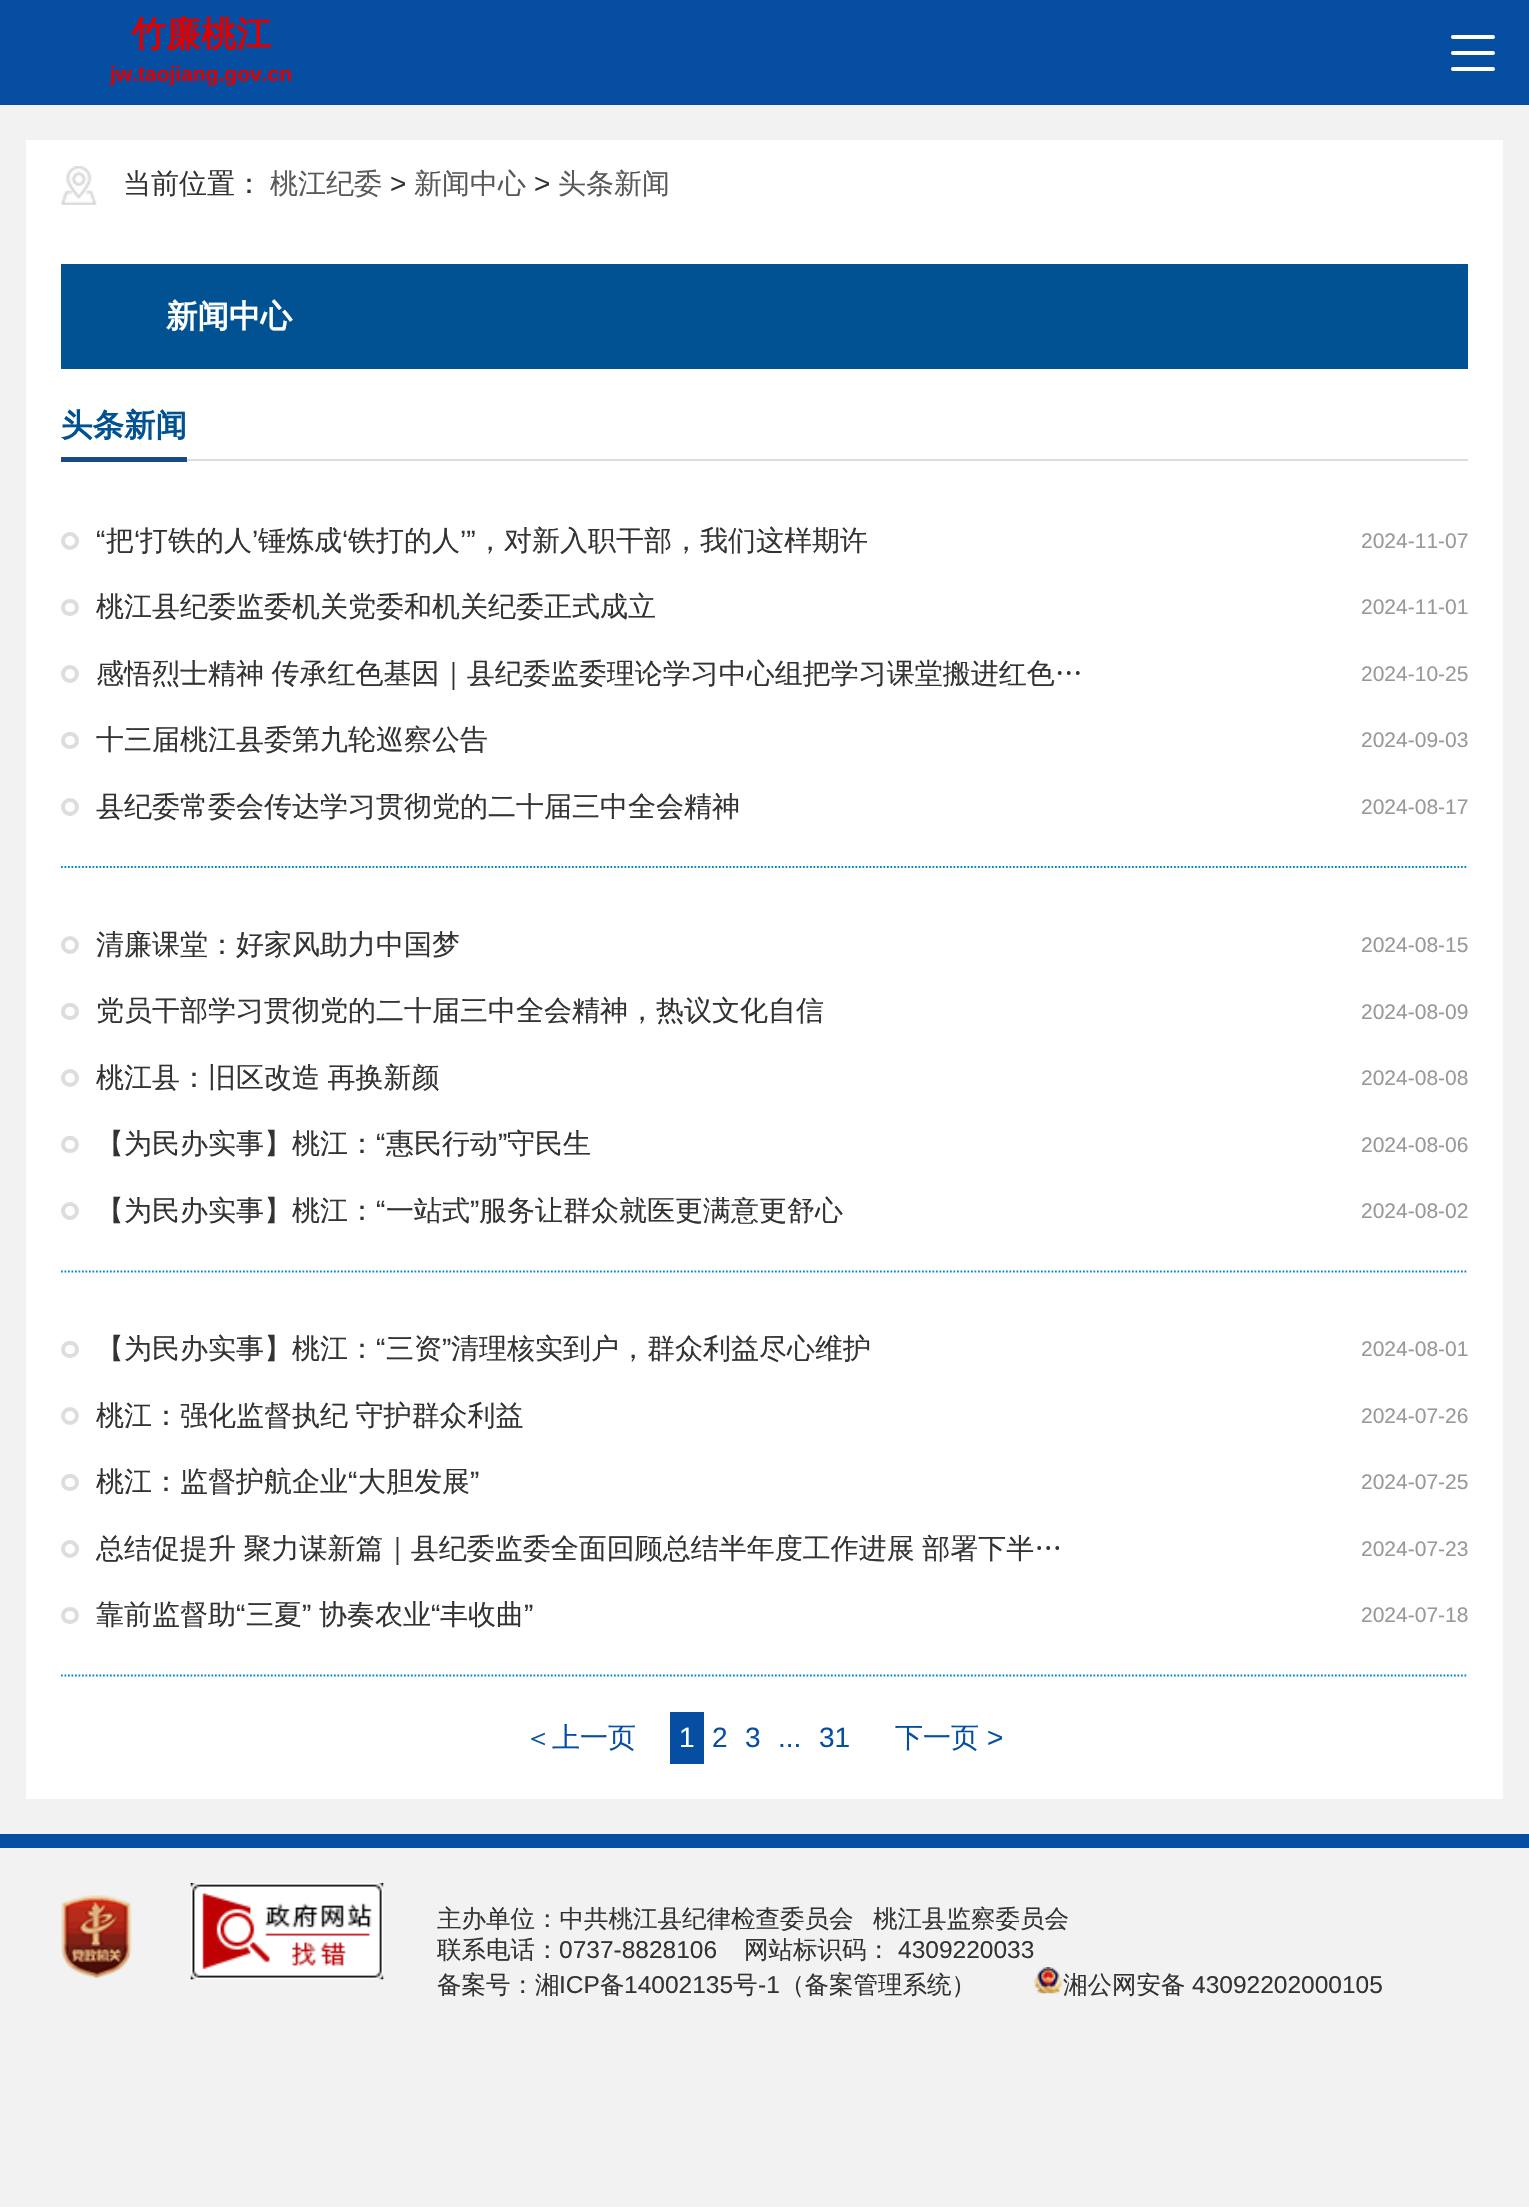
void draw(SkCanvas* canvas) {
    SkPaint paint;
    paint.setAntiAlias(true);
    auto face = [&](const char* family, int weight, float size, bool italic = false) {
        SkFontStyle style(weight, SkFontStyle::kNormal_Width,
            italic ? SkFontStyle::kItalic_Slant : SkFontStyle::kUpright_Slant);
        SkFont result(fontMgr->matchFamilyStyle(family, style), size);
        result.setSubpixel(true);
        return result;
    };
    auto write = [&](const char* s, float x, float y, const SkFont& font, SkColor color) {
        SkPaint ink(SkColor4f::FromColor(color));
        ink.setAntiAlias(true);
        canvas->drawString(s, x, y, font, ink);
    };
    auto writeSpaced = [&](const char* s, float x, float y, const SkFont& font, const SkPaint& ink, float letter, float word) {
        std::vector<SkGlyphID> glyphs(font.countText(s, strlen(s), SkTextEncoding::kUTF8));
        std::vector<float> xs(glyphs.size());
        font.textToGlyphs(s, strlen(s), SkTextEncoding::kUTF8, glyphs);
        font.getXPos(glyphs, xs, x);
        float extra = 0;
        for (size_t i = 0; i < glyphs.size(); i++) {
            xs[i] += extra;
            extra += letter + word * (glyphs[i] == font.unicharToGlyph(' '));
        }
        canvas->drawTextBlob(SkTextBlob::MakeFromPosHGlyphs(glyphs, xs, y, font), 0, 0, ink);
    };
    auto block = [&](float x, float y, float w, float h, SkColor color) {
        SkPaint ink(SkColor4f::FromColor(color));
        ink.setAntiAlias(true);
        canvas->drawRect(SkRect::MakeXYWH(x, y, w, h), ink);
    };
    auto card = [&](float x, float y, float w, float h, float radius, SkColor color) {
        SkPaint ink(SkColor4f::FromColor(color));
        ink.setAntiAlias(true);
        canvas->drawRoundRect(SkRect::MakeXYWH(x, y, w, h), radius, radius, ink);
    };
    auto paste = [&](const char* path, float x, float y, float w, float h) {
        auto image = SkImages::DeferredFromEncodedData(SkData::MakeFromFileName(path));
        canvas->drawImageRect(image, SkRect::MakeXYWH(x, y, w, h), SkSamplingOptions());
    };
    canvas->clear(SkColorSetRGB(242, 242, 242));
    block(0, 0, 1529, 105, SkColorSetRGB(5, 78, 161));
    auto kFont1 = face("WenQuanYi Zen Hei", 700, 35);
    write("竹廉桃江", 131, 46, kFont1, SkColorSetRGB(223, 0, 0));
    auto kFont2 = face("Liberation Sans", 700, 21);
    write("jw.taojiang.gov.cn", 110, 81, kFont2, SkColorSetRGB(223, 0, 0));
    card(1451, 51, 44, 4, 2, SK_ColorWHITE);
    card(1451, 35, 44, 4, 2, SK_ColorWHITE);
    card(1451, 67, 44, 4, 2, SK_ColorWHITE);
    block(26, 140, 1477, 1659, SK_ColorWHITE);
    paste("pic1.png", 61, 166, 36, 39);
    auto kFont3 = face("WenQuanYi Zen Hei", 500, 28);
    write("当前位置：", 123, 193, kFont3, SkColorSetRGB(51, 51, 51));
    write("桃江纪委", 270, 193, kFont3, SkColorSetRGB(89, 89, 89));
    auto kFont4 = face("Liberation Sans", 400, 28);
    write(">", 390, 193, kFont4, SkColorSetRGB(51, 51, 51));
    write("新闻中心", 414, 193, kFont3, SkColorSetRGB(89, 89, 89));
    write(">", 534, 193, kFont4, SkColorSetRGB(51, 51, 51));
    write("头条新闻", 558, 193, kFont3, SkColorSetRGB(89, 89, 89));
    block(61, 264, 1407, 105, SkColorSetRGB(1, 82, 147));
    auto kFont5 = face("WenQuanYi Zen Hei", 700, 31.5f);
    write("新闻中心", 166, 327, kFont5, SK_ColorWHITE);
    block(61, 457, 126, 5, SkColorSetRGB(24, 74, 138));
    write("头条新闻", 61, 436, kFont5, SkColorSetRGB(1, 82, 147));
    block(187, 459, 1281, 2, SkColorSetRGB(221, 221, 221));
    paint.setStyle(SkPaint::kStroke_Style);
    paint.setStrokeWidth(1.8f);
    paint.setColor(SkColorSetRGB(0, 136, 204));
    paint.setPathEffect(SkDashPathEffect::Make({{1.75f, 1.75f}}, 0));
    canvas->drawPath(SkPathBuilder().moveTo(61, 867).lineTo(1468, 867).detach(), paint);
    paint.setPathEffect(nullptr);
    paint.setStrokeWidth(4);
    paint.setColor(SkColorSetRGB(221, 221, 221));
    canvas->drawCircle(70, 541, 7, paint);
    write("“", 96, 550, kFont4, SkColorSetRGB(51, 51, 51));
    write("把", 106, 550, kFont3, SkColorSetRGB(51, 51, 51));
    write("‘", 134, 550, kFont4, SkColorSetRGB(51, 51, 51));
    write("打铁的人", 140, 550, kFont3, SkColorSetRGB(51, 51, 51));
    write("’", 252, 550, kFont4, SkColorSetRGB(51, 51, 51));
    write("锤炼成", 258, 550, kFont3, SkColorSetRGB(51, 51, 51));
    write("‘", 342, 550, kFont4, SkColorSetRGB(51, 51, 51));
    write("铁打的人", 348, 550, kFont3, SkColorSetRGB(51, 51, 51));
    write("’”", 460, 550, kFont4, SkColorSetRGB(51, 51, 51));
    write("，对新入职干部，我们这样期许", 476, 550, kFont3, SkColorSetRGB(51, 51, 51));
    auto kFont6 = face("Liberation Sans", 400, 21);
    write("2024-11-07", 1361, 548, kFont6, SkColorSetRGB(153, 153, 153));
    canvas->drawRoundRect(SkRect::MakeXYWH(63, 601, 14, 13), 6.5f, 6.5f, paint);
    write("桃江县纪委监委机关党委和机关纪委正式成立", 96, 616, kFont3, SkColorSetRGB(51, 51, 51));
    write("2024-11-01", 1361, 614, kFont6, SkColorSetRGB(153, 153, 153));
    canvas->drawCircle(70, 674, 7, paint);
    paint.setStyle(SkPaint::kFill_Style);
    paint.setColor(SkColorSetRGB(51, 51, 51));
    writeSpaced("感悟烈士精神 传承红色基因｜县纪委监委理论学习中心组把学习课堂搬进红色…", 96, 683, kFont3, paint, 0, -1);
    write("2024-10-25", 1361, 681, kFont6, SkColorSetRGB(153, 153, 153));
    paint.setStyle(SkPaint::kStroke_Style);
    paint.setColor(SkColorSetRGB(221, 221, 221));
    canvas->drawRoundRect(SkRect::MakeXYWH(63, 734, 14, 13), 6.5f, 6.5f, paint);
    write("十三届桃江县委第九轮巡察公告", 96, 749, kFont3, SkColorSetRGB(51, 51, 51));
    write("2024-09-03", 1361, 747, kFont6, SkColorSetRGB(153, 153, 153));
    canvas->drawCircle(70, 807, 7, paint);
    write("县纪委常委会传达学习贯彻党的二十届三中全会精神", 96, 816, kFont3, SkColorSetRGB(51, 51, 51));
    write("2024-08-17", 1361, 814, kFont6, SkColorSetRGB(153, 153, 153));
    paint.setStrokeWidth(1.8f);
    paint.setColor(SkColorSetRGB(0, 136, 204));
    paint.setPathEffect(SkDashPathEffect::Make({{1.75f, 1.75f}}, 0));
    canvas->drawPath(SkPathBuilder().moveTo(61, 1271.5f).lineTo(1468, 1271.5f).detach(), paint);
    paint.setPathEffect(nullptr);
    paint.setStrokeWidth(4);
    paint.setColor(SkColorSetRGB(221, 221, 221));
    canvas->drawCircle(70, 945, 7, paint);
    write("清廉课堂：好家风助力中国梦", 96, 954, kFont3, SkColorSetRGB(51, 51, 51));
    write("2024-08-15", 1361, 952, kFont6, SkColorSetRGB(153, 153, 153));
    canvas->drawRoundRect(SkRect::MakeXYWH(63, 1005, 14, 13), 6.5f, 6.5f, paint);
    write("党员干部学习贯彻党的二十届三中全会精神，热议文化自信", 96, 1020, kFont3, SkColorSetRGB(51, 51, 51));
    write("2024-08-09", 1361, 1019, kFont6, SkColorSetRGB(153, 153, 153));
    canvas->drawCircle(70, 1078, 7, paint);
    paint.setStyle(SkPaint::kFill_Style);
    paint.setColor(SkColorSetRGB(51, 51, 51));
    writeSpaced("桃江县：旧区改造 再换新颜", 96, 1087, kFont3, paint, 0, -1);
    write("2024-08-08", 1361, 1085, kFont6, SkColorSetRGB(153, 153, 153));
    paint.setStyle(SkPaint::kStroke_Style);
    paint.setColor(SkColorSetRGB(221, 221, 221));
    canvas->drawRoundRect(SkRect::MakeXYWH(63, 1138, 14, 13), 6.5f, 6.5f, paint);
    write("【为民办实事】桃江：", 96, 1153, kFont3, SkColorSetRGB(51, 51, 51));
    write("“", 376, 1153, kFont4, SkColorSetRGB(51, 51, 51));
    write("惠民行动", 386, 1153, kFont3, SkColorSetRGB(51, 51, 51));
    write("”", 498, 1153, kFont4, SkColorSetRGB(51, 51, 51));
    write("守民生", 507, 1153, kFont3, SkColorSetRGB(51, 51, 51));
    write("2024-08-06", 1361, 1152, kFont6, SkColorSetRGB(153, 153, 153));
    canvas->drawCircle(70, 1211, 7, paint);
    write("【为民办实事】桃江：", 96, 1220, kFont3, SkColorSetRGB(51, 51, 51));
    write("“", 376, 1220, kFont4, SkColorSetRGB(51, 51, 51));
    write("一站式", 386, 1220, kFont3, SkColorSetRGB(51, 51, 51));
    write("”", 470, 1220, kFont4, SkColorSetRGB(51, 51, 51));
    write("服务让群众就医更满意更舒心", 479, 1220, kFont3, SkColorSetRGB(51, 51, 51));
    write("2024-08-02", 1361, 1218, kFont6, SkColorSetRGB(153, 153, 153));
    paint.setStrokeWidth(1.8f);
    paint.setColor(SkColorSetRGB(0, 136, 204));
    paint.setPathEffect(SkDashPathEffect::Make({{1.75f, 1.75f}}, 0));
    canvas->drawPath(SkPathBuilder().moveTo(61, 1675.5f).lineTo(1468, 1675.5f).detach(), paint);
    paint.setPathEffect(nullptr);
    paint.setStrokeWidth(4);
    paint.setColor(SkColorSetRGB(221, 221, 221));
    canvas->drawRoundRect(SkRect::MakeXYWH(63, 1343, 14, 13), 6.5f, 6.5f, paint);
    write("【为民办实事】桃江：", 96, 1358, kFont3, SkColorSetRGB(51, 51, 51));
    write("“", 376, 1358, kFont4, SkColorSetRGB(51, 51, 51));
    write("三资", 386, 1358, kFont3, SkColorSetRGB(51, 51, 51));
    write("”", 442, 1358, kFont4, SkColorSetRGB(51, 51, 51));
    write("清理核实到户，群众利益尽心维护", 451, 1358, kFont3, SkColorSetRGB(51, 51, 51));
    write("2024-08-01", 1361, 1356, kFont6, SkColorSetRGB(153, 153, 153));
    canvas->drawCircle(70, 1416, 7, paint);
    paint.setStyle(SkPaint::kFill_Style);
    paint.setColor(SkColorSetRGB(51, 51, 51));
    writeSpaced("桃江：强化监督执纪 守护群众利益", 96, 1425, kFont3, paint, 0, -1);
    write("2024-07-26", 1361, 1423, kFont6, SkColorSetRGB(153, 153, 153));
    paint.setStyle(SkPaint::kStroke_Style);
    paint.setColor(SkColorSetRGB(221, 221, 221));
    canvas->drawRoundRect(SkRect::MakeXYWH(63, 1476, 14, 13), 6.5f, 6.5f, paint);
    write("桃江：监督护航企业", 96, 1491, kFont3, SkColorSetRGB(51, 51, 51));
    write("“", 348, 1491, kFont4, SkColorSetRGB(51, 51, 51));
    write("大胆发展", 358, 1491, kFont3, SkColorSetRGB(51, 51, 51));
    write("”", 470, 1491, kFont4, SkColorSetRGB(51, 51, 51));
    write("2024-07-25", 1361, 1489, kFont6, SkColorSetRGB(153, 153, 153));
    canvas->drawCircle(70, 1549, 7, paint);
    paint.setStyle(SkPaint::kFill_Style);
    paint.setColor(SkColorSetRGB(51, 51, 51));
    writeSpaced("总结促提升 聚力谋新篇｜县纪委监委全面回顾总结半年度工作进展 部署下半…", 96, 1558, kFont3, paint, 0, -1);
    write("2024-07-23", 1361, 1556, kFont6, SkColorSetRGB(153, 153, 153));
    paint.setStyle(SkPaint::kStroke_Style);
    paint.setColor(SkColorSetRGB(221, 221, 221));
    canvas->drawRoundRect(SkRect::MakeXYWH(63, 1609, 14, 13), 6.5f, 6.5f, paint);
    write("靠前监督助", 96, 1624, kFont3, SkColorSetRGB(51, 51, 51));
    write("“", 236, 1624, kFont4, SkColorSetRGB(51, 51, 51));
    write("三夏", 246, 1624, kFont3, SkColorSetRGB(51, 51, 51));
    write("”", 302, 1624, kFont4, SkColorSetRGB(51, 51, 51));
    write("协奏农业", 319, 1624, kFont3, SkColorSetRGB(51, 51, 51));
    write("“", 431, 1624, kFont4, SkColorSetRGB(51, 51, 51));
    write("丰收曲", 440, 1624, kFont3, SkColorSetRGB(51, 51, 51));
    write("”", 524, 1624, kFont4, SkColorSetRGB(51, 51, 51));
    write("2024-07-18", 1361, 1622, kFont6, SkColorSetRGB(153, 153, 153));
    write("＜上一页", 524, 1747, kFont3, SkColorSetRGB(5, 78, 161));
    block(670, 1712, 34, 52, SkColorSetRGB(5, 78, 161));
    write("1", 679, 1747, kFont4, SK_ColorWHITE);
    write("2", 712, 1747, kFont4, SkColorSetRGB(5, 78, 161));
    write("3", 745, 1747, kFont4, SkColorSetRGB(5, 78, 161));
    write("...", 778, 1747, kFont4, SkColorSetRGB(5, 78, 161));
    write("31", 819, 1747, kFont4, SkColorSetRGB(5, 78, 161));
    write("下一页", 895, 1747, kFont3, SkColorSetRGB(5, 78, 161));
    write(">", 987, 1747, kFont4, SkColorSetRGB(5, 78, 161));
    block(0, 1834, 1529, 14, SkColorSetRGB(5, 78, 161));
    paste("pic2.png", 61, 1895, 71, 83);
    paste("pic3.png", 190, 1883, 194, 97);
    auto kFont7 = face("WenQuanYi Zen Hei", 500, 24.5f);
    write("主办单位：中共桃江县纪律检查委员会", 437, 1927, kFont7, SkColorSetRGB(51, 51, 51));
    write("桃江县监察委员会", 873, 1927, kFont7, SkColorSetRGB(51, 51, 51));
    write("联系电话：", 437, 1958, kFont7, SkColorSetRGB(51, 51, 51));
    auto kFont8 = face("Liberation Sans", 400, 24.5f);
    write("0737-8828106", 559, 1958, kFont8, SkColorSetRGB(51, 51, 51));
    write("网站标识码：", 744, 1958, kFont7, SkColorSetRGB(51, 51, 51));
    write("4309220033", 898, 1958, kFont8, SkColorSetRGB(51, 51, 51));
    write("备案号：湘", 437, 1993, kFont7, SkColorSetRGB(51, 51, 51));
    write("ICP", 559, 1993, kFont8, SkColorSetRGB(51, 51, 51));
    write("备", 600, 1993, kFont7, SkColorSetRGB(51, 51, 51));
    write("14002135", 624, 1993, kFont8, SkColorSetRGB(51, 51, 51));
    write("号", 733, 1993, kFont7, SkColorSetRGB(51, 51, 51));
    write("-1", 758, 1993, kFont8, SkColorSetRGB(51, 51, 51));
    write("（备案管理系统）", 780, 1993, kFont7, SkColorSetRGB(51, 51, 51));
    paste("pic4.png", 1034, 1967, 29, 27);
    write("湘公网安备", 1063, 1993, kFont7, SkColorSetRGB(51, 51, 51));
    write("43092202000105", 1192, 1993, kFont8, SkColorSetRGB(51, 51, 51));
}
